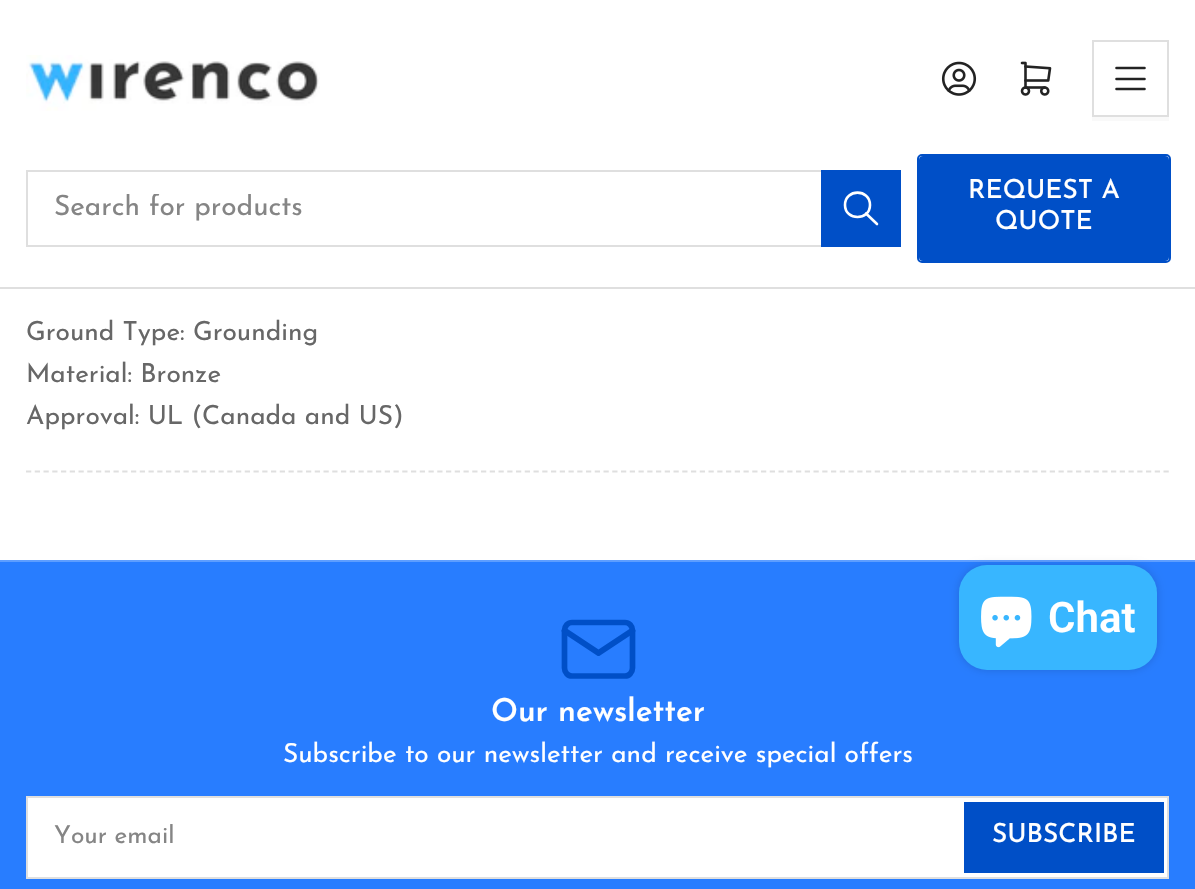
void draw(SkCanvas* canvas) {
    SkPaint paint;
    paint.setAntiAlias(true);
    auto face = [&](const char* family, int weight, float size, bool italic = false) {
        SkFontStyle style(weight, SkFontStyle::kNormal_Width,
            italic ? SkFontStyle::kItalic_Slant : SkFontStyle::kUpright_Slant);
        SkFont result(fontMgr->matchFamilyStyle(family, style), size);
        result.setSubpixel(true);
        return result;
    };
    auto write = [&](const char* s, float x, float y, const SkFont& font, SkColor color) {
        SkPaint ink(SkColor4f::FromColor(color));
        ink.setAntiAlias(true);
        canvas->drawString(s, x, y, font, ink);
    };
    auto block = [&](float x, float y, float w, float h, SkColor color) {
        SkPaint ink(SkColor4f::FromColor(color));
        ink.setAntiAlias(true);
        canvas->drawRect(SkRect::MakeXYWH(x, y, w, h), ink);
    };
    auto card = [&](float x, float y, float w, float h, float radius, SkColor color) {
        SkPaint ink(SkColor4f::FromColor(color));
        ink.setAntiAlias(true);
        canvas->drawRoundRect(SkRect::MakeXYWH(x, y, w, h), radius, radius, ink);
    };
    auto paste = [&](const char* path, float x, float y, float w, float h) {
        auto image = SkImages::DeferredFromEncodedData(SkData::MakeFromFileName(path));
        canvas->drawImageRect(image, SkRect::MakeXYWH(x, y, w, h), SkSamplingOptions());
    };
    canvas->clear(SK_ColorWHITE);
    block(0, 287, 1195, 2, SkColorSetRGB(223, 223, 223));
    paste("pic1.png", 26, 55, 294, 56);
    paste("pic2.png", 941, 61, 36, 35);
    paste("pic3.png", 1020, 61, 32, 35);
    block(1092, 117, 77, 4, SkColorSetRGB(249, 249, 249));
    paint.setStyle(SkPaint::kStroke_Style);
    paint.setStrokeWidth(2);
    paint.setColor(SkColorSetRGB(223, 223, 223));
    canvas->drawRect(SkRect::MakeXYWH(1093, 41, 75, 75), paint);
    paint.setStrokeWidth(2.6f);
    paint.setStrokeCap(SkPaint::kRound_Cap);
    paint.setStrokeJoin(SkPaint::kRound_Join);
    paint.setColor(SkColorSetRGB(35, 35, 35));
    canvas->drawPath(SkPathBuilder().moveTo(1116.5f, 68).lineTo(1144.5f, 68).moveTo(1116.5f, 79).lineTo(1144.5f, 79).moveTo(1116.5f, 89).lineTo(1144.5f, 89).detach(), paint);
    paint.setStrokeWidth(2);
    paint.setStrokeCap(SkPaint::kButt_Cap);
    paint.setStrokeJoin(SkPaint::kMiter_Join);
    paint.setColor(SkColorSetRGB(223, 223, 223));
    canvas->drawRect(SkRect::MakeXYWH(27, 171, 873, 75), paint);
    canvas->save();
    canvas->clipRect(SkRect::MakeXYWH(54, 194, 819, 28));
    auto kFont1 = face("Josefin Sans", 400, 28);
    write("Search for products", 54, 215, kFont1, SkColorSetRGB(133, 133, 133));
    canvas->restore();
    paint.setColor(SkColorSetRGB(0, 79, 199));
    canvas->drawRect(SkRect::MakeXYWH(822, 171, 78, 75), paint);
    block(823, 172, 76, 73, SkColorSetRGB(0, 79, 199));
    paint.setStrokeWidth(2.6f);
    paint.setStrokeCap(SkPaint::kRound_Cap);
    paint.setStrokeJoin(SkPaint::kRound_Join);
    paint.setColor(SK_ColorWHITE);
    canvas->drawPath(SkPathBuilder().moveTo(845, 205).cubicTo(845, 221, 870, 221, 870, 205).cubicTo(870, 188.5f, 845, 188.5f, 845, 205).moveTo(877, 224).lineTo(866, 213.5f).detach(), paint);
    paint.setStrokeWidth(2);
    paint.setStrokeCap(SkPaint::kButt_Cap);
    paint.setStrokeJoin(SkPaint::kMiter_Join);
    paint.setColor(SkColorSetRGB(0, 79, 199));
    canvas->drawRoundRect(SkRect::MakeXYWH(918, 155, 252, 107), 4, 4, paint);
    card(919, 156, 250, 105, 4, SkColorSetRGB(0, 79, 199));
    auto kFont2 = face("Josefin Sans", 500, 26.25f);
    write("REQUEST A", 968, 198, kFont2, SK_ColorWHITE);
    write("QUOTE", 995, 229, kFont2, SK_ColorWHITE);
    paint.setStrokeWidth(1.8f);
    paint.setColor(SkColorSetRGB(223, 223, 223));
    paint.setPathEffect(SkDashPathEffect::Make({{5.25f, 3.5f}}, 0));
    canvas->drawPath(SkPathBuilder().moveTo(26, 471.5f).lineTo(1169, 471.5f).detach(), paint);
    paint.setPathEffect(nullptr);
    auto kFont3 = face("Josefin Sans", 400, 26.25f);
    write("Ground Type: Grounding", 26, 340, kFont3, SkColorSetRGB(103, 103, 103));
    write("Material: Bronze", 26, 382, kFont3, SkColorSetRGB(103, 103, 103));
    write("Approval: UL (Canada and US)", 26, 424, kFont3, SkColorSetRGB(103, 103, 103));
    block(0, 562, 1195, 327, SkColorSetRGB(40, 125, 255));
    block(0, 560, 1195, 2, SkColorSetRGB(94, 158, 255));
    paint.setStyle(SkPaint::kFill_Style);
    paint.setColor(SkColorSetARGB(38, 0, 0, 0));
    paint.setMaskFilter(SkMaskFilter::MakeBlur(kNormal_SkBlurStyle, 4.5f));
    canvas->drawRoundRect(SkRect::MakeXYWH(959, 565, 198, 105), 28, 28, paint);
    paint.setMaskFilter(nullptr);
    card(959, 565, 198, 105, 28, SkColorSetRGB(56, 182, 255));
    paste("pic4.png", 981, 596, 51, 52);
    auto kFont4 = face("Roboto", 600, 42);
    write("Chat", 1048, 632, kFont4, SK_ColorWHITE);
    paint.setStyle(SkPaint::kStroke_Style);
    paint.setStrokeWidth(5.7f);
    paint.setStrokeCap(SkPaint::kRound_Cap);
    paint.setStrokeJoin(SkPaint::kRound_Join);
    paint.setColor(SkColorSetRGB(0, 79, 199));
    canvas->drawPath(SkPathBuilder().moveTo(564.5f, 630.5f).cubicTo(564.5f, 626, 568, 622.5f, 572, 622.5f).lineTo(625, 622.5f).cubicTo(629, 622.5f, 632.5f, 626, 632.5f, 630.5f).lineTo(632.5f, 668).cubicTo(632.5f, 672.5f, 629, 676, 625, 676).lineTo(572, 676).cubicTo(568, 676, 564.5f, 672.5f, 564.5f, 668).close().detach(), paint);
    canvas->drawPath(SkPathBuilder().moveTo(564.5f, 630.5f).lineTo(598.5f, 653).lineTo(632.5f, 630.5f).detach(), paint);
    auto kFont5 = face("Josefin Sans", 600, 31.5f);
    write("Our newsletter", 491, 721, kFont5, SK_ColorWHITE);
    write("Subscribe to our newsletter and receive special offers", 283, 762, kFont3, SK_ColorWHITE);
    paint.setStyle(SkPaint::kFill_Style);
    paint.setColor(SK_ColorWHITE);
    canvas->drawRect(SkRect::MakeXYWH(27, 797, 1141, 81), paint);
    paint.setStyle(SkPaint::kStroke_Style);
    paint.setStrokeWidth(2);
    paint.setStrokeCap(SkPaint::kButt_Cap);
    paint.setStrokeJoin(SkPaint::kMiter_Join);
    paint.setColor(SkColorSetRGB(223, 223, 223));
    canvas->drawRect(SkRect::MakeXYWH(27, 797, 1141, 81), paint);
    auto kFont6 = face("Josefin Sans", 400, 24.5f);
    write("Your email", 54, 843, kFont6, SkColorSetRGB(133, 133, 133));
    paint.setColor(SkColorSetRGB(0, 79, 199));
    canvas->drawRect(SkRect::MakeXYWH(965, 803, 198, 69), paint);
    block(966, 804, 196, 67, SkColorSetRGB(0, 79, 199));
    write("SUBSCRIBE", 992, 842, kFont2, SK_ColorWHITE);
}
